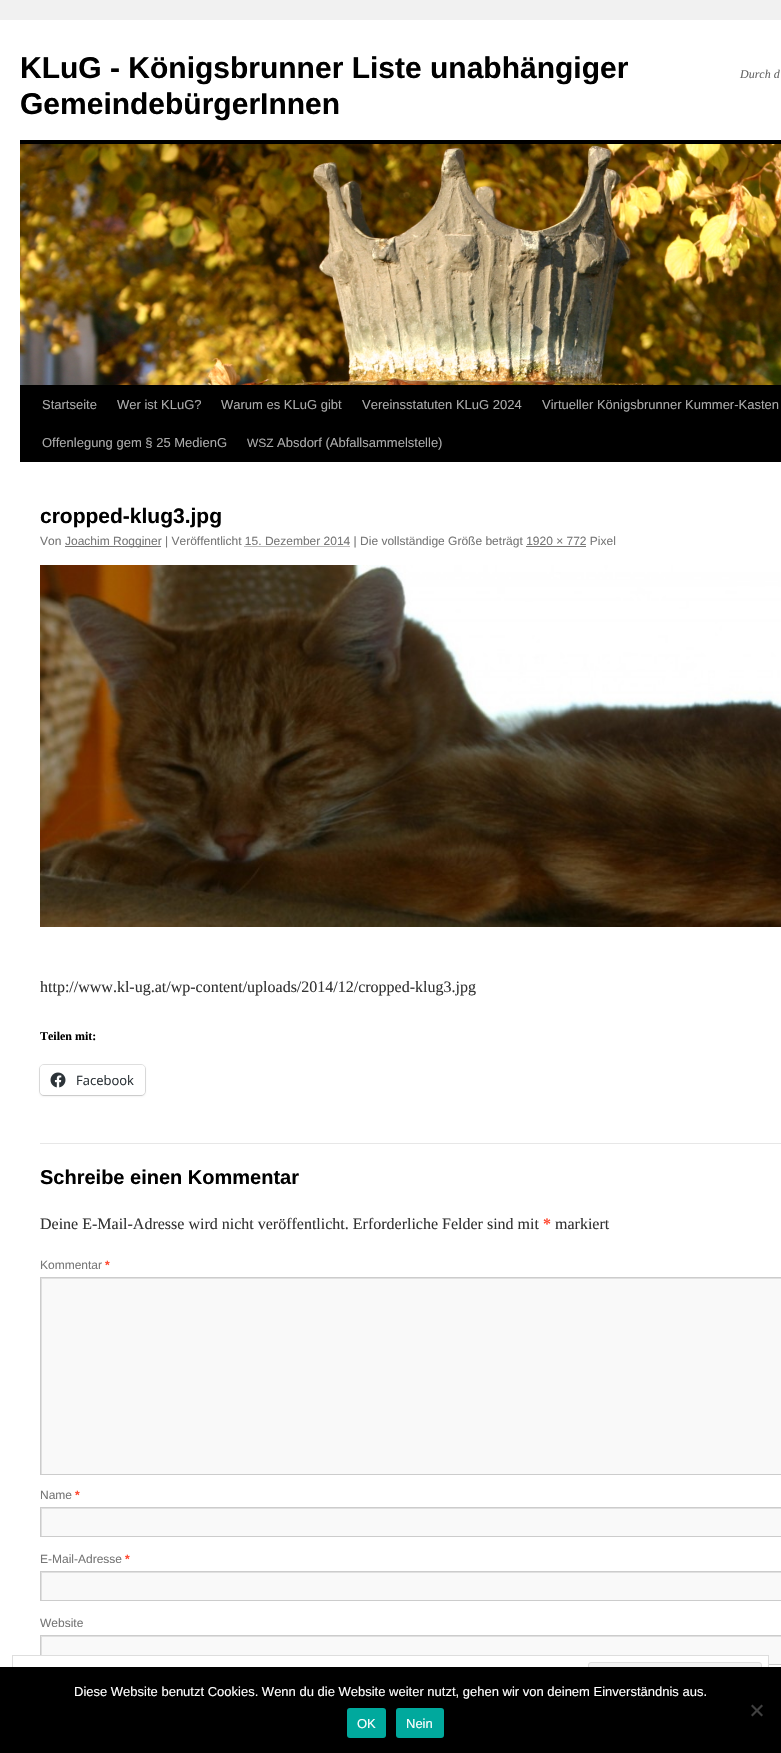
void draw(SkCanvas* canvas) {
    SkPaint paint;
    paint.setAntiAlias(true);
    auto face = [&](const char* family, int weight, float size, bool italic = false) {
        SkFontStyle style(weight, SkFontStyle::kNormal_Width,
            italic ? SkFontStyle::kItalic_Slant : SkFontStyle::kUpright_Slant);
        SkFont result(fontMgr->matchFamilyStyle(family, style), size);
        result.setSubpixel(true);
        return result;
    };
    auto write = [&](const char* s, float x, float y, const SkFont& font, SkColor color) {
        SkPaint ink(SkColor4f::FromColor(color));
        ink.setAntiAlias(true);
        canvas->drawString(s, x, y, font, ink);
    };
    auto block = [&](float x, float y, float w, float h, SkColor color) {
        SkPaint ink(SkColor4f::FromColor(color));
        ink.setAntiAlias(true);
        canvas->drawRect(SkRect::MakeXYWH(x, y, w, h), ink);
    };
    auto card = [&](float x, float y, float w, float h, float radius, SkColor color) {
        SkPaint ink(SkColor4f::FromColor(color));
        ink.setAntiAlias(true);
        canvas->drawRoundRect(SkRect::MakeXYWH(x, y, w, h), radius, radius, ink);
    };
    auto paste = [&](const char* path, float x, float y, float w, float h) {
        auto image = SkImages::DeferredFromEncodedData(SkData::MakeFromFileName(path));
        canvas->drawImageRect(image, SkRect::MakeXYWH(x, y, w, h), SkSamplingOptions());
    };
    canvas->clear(SkColorSetRGB(241, 241, 241));
    block(0, 20, 781, 1647, SK_ColorWHITE);
    auto kFont1 = face("Liberation Sans", 700, 30);
    write("KLuG - Königsbrunner Liste unabhängiger", 20, 78, kFont1, SK_ColorBLACK);
    write("GemeindebürgerInnen", 20, 114, kFont1, SK_ColorBLACK);
    auto kFont2 = face("Liberation Serif", 400, 12, true);
    write("Durch d", 740, 78, kFont2, SkColorSetRGB(102, 102, 102));
    block(20, 140, 761, 4, SK_ColorBLACK);
    block(20, 385, 761, 77, SK_ColorBLACK);
    paste("pic1.png", 20, 144, 761, 241);
    auto kFont3 = face("Liberation Sans", 400, 13);
    write("Startseite", 42, 409, kFont3, SkColorSetRGB(170, 170, 170));
    write("Wer ist KLuG?", 117, 409, kFont3, SkColorSetRGB(170, 170, 170));
    write("Warum es KLuG gibt", 221, 409, kFont3, SkColorSetRGB(170, 170, 170));
    write("Vereinsstatuten KLuG 2024", 362, 409, kFont3, SkColorSetRGB(170, 170, 170));
    write("Virtueller Königsbrunner Kummer-Kasten", 542, 409, kFont3, SkColorSetRGB(170, 170, 170));
    write("Offenlegung gem § 25 MedienG", 42, 447, kFont3, SkColorSetRGB(170, 170, 170));
    auto kFont4 = face("Liberation Sans", 400, 12);
    write("WSZ", 247, 447, kFont4, SkColorSetRGB(170, 170, 170));
    write("Absdorf (Abfallsammelstelle)", 277, 447, kFont3, SkColorSetRGB(170, 170, 170));
    auto kFont5 = face("Liberation Sans", 700, 21);
    write("cropped-klug3.jpg", 40, 523, kFont5, SK_ColorBLACK);
    write("Von", 40, 545, kFont4, SkColorSetRGB(119, 119, 119));
    block(65, 546, 96, 1, SkColorSetRGB(119, 119, 119));
    write("Joachim Rogginer | Veröffentlicht 15. Dezember 2014 | Die vollständige Größe beträgt 1920 × 772 Pixel", 65, 545, kFont4, SkColorSetRGB(119, 119, 119));
    paint.setStyle(SkPaint::kStroke_Style);
    paint.setStrokeWidth(1);
    paint.setColor(SkColorSetRGB(119, 119, 119));
    paint.setPathEffect(SkDashPathEffect::Make({{1, 1}}, 0));
    canvas->drawPath(SkPathBuilder().moveTo(244.5f, 546.5f).lineTo(350, 546.5f).detach(), paint);
    paint.setPathEffect(nullptr);
    block(526, 546, 60, 1, SkColorSetRGB(119, 119, 119));
    paste("pic2.png", 40, 565, 741, 362);
    auto kFont6 = face("Liberation Serif", 400, 16);
    write("http://www.k‑l-u‑g.at/wp-content/uploads/2014/12/cropped-klug3.jpg", 40, 992, kFont6, SkColorSetRGB(51, 51, 51));
    auto kFont7 = face("Liberation Serif", 700, 12);
    write("Teilen mit:", 40, 1040, kFont7, SK_ColorBLACK);
    paint.setColor(SkColorSetRGB(224, 224, 224));
    canvas->drawRoundRect(SkRect::MakeXYWH(39.5f, 1064.5f, 106, 31), 4.5f, 4.5f, paint);
    paint.setStyle(SkPaint::kFill_Style);
    paint.setColor(SkColorSetARGB(31, 0, 0, 0));
    paint.setMaskFilter(SkMaskFilter::MakeBlur(kNormal_SkBlurStyle, 1));
    canvas->drawRoundRect(SkRect::MakeXYWH(40, 1066, 105, 30), 4, 4, paint);
    paint.setMaskFilter(nullptr);
    card(40, 1065, 105, 30, 4, SK_ColorWHITE);
    paste("pic3.png", 50, 1072, 16, 16);
    auto kFont8 = face("Open Sans", 400, 13);
    write("Facebook", 76, 1085, kFont8, SkColorSetRGB(44, 51, 56));
    block(40, 1143, 741, 1, SkColorSetRGB(231, 231, 231));
    auto kFont9 = face("Liberation Sans", 700, 20);
    write("Schreibe einen Kommentar", 40, 1184, kFont9, SK_ColorBLACK);
    write("Deine E-Mail-Adresse wird nicht veröffentlicht. Erforderliche Felder sind mit", 40, 1229, kFont6, SkColorSetRGB(51, 51, 51));
    auto kFont10 = face("Liberation Serif", 700, 16);
    write("*", 543, 1229, kFont10, SkColorSetRGB(255, 75, 51));
    write("markiert", 555, 1229, kFont6, SkColorSetRGB(51, 51, 51));
    write("Kommentar", 40, 1269, kFont4, SkColorSetRGB(119, 119, 119));
    auto kFont11 = face("Liberation Sans", 700, 12);
    write("*", 105, 1269, kFont11, SkColorSetRGB(255, 75, 51));
    block(42, 1279, 739, 195, SkColorSetRGB(249, 249, 249));
    canvas->save();
    canvas->clipRect(SkRect::MakeXYWH(41, 1278, 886, 196));
    paint.setColor(SkColorSetRGB(224, 224, 224));
    canvas->drawPath(SkPathBuilder(SkPathFillType::kEvenOdd).moveTo(-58, 1179).lineTo(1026, 1179).lineTo(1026, 1573).lineTo(-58, 1573).close().moveTo(42, 1279).lineTo(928, 1279).lineTo(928, 1475).lineTo(42, 1475).close().detach(), paint);
    canvas->restore();
    paint.setStyle(SkPaint::kStroke_Style);
    paint.setColor(SkColorSetRGB(204, 204, 204));
    canvas->drawRect(SkRect::MakeXYWH(40.5f, 1277.5f, 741, 197), paint);
    write("Name", 40, 1499, kFont4, SkColorSetRGB(119, 119, 119));
    write("*", 75, 1499, kFont11, SkColorSetRGB(255, 75, 51));
    block(42, 1509, 739, 27, SkColorSetRGB(249, 249, 249));
    canvas->save();
    canvas->clipRect(SkRect::MakeXYWH(41, 1508, 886, 28));
    paint.setStyle(SkPaint::kFill_Style);
    paint.setColor(SkColorSetRGB(224, 224, 224));
    canvas->drawPath(SkPathBuilder(SkPathFillType::kEvenOdd).moveTo(-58, 1409).lineTo(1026, 1409).lineTo(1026, 1635).lineTo(-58, 1635).close().moveTo(42, 1509).lineTo(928, 1509).lineTo(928, 1537).lineTo(42, 1537).close().detach(), paint);
    canvas->restore();
    paint.setStyle(SkPaint::kStroke_Style);
    paint.setColor(SkColorSetRGB(204, 204, 204));
    canvas->drawRect(SkRect::MakeXYWH(40.5f, 1507.5f, 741, 29), paint);
    write("E-Mail-Adresse", 40, 1563, kFont4, SkColorSetRGB(119, 119, 119));
    write("*", 125, 1563, kFont11, SkColorSetRGB(255, 75, 51));
    block(42, 1573, 739, 27, SkColorSetRGB(249, 249, 249));
    canvas->save();
    canvas->clipRect(SkRect::MakeXYWH(41, 1572, 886, 28));
    paint.setStyle(SkPaint::kFill_Style);
    paint.setColor(SkColorSetRGB(224, 224, 224));
    canvas->drawPath(SkPathBuilder(SkPathFillType::kEvenOdd).moveTo(-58, 1473).lineTo(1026, 1473).lineTo(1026, 1699).lineTo(-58, 1699).close().moveTo(42, 1573).lineTo(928, 1573).lineTo(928, 1601).lineTo(42, 1601).close().detach(), paint);
    canvas->restore();
    paint.setStyle(SkPaint::kStroke_Style);
    paint.setColor(SkColorSetRGB(204, 204, 204));
    canvas->drawRect(SkRect::MakeXYWH(40.5f, 1571.5f, 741, 29), paint);
    write("Website", 40, 1627, kFont4, SkColorSetRGB(119, 119, 119));
    block(42, 1637, 739, 27, SkColorSetRGB(249, 249, 249));
    canvas->save();
    canvas->clipRect(SkRect::MakeXYWH(41, 1636, 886, 28));
    paint.setStyle(SkPaint::kFill_Style);
    paint.setColor(SkColorSetRGB(224, 224, 224));
    canvas->drawPath(SkPathBuilder(SkPathFillType::kEvenOdd).moveTo(-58, 1537).lineTo(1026, 1537).lineTo(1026, 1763).lineTo(-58, 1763).close().moveTo(42, 1637).lineTo(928, 1637).lineTo(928, 1665).lineTo(42, 1665).close().detach(), paint);
    canvas->restore();
    paint.setStyle(SkPaint::kStroke_Style);
    paint.setColor(SkColorSetRGB(204, 204, 204));
    canvas->drawRect(SkRect::MakeXYWH(40.5f, 1635.5f, 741, 29), paint);
    block(40, 1656, 728, 9, SK_ColorWHITE);
    paint.setColor(SkColorSetRGB(222, 222, 222));
    canvas->drawRect(SkRect::MakeXYWH(12.5f, 1655.5f, 756, 85), paint);
    paint.setStyle(SkPaint::kFill_Style);
    paint.setColor(SkColorSetRGB(243, 243, 243));
    canvas->drawRoundRect(SkRect::MakeXYWH(588.5f, 1662.5f, 173, 38), 2.5f, 2.5f, paint);
    paint.setStyle(SkPaint::kStroke_Style);
    paint.setColor(SkColorSetRGB(222, 222, 222));
    canvas->drawRoundRect(SkRect::MakeXYWH(588.5f, 1662.5f, 173, 38), 2.5f, 2.5f, paint);
    block(0, 1667, 781, 86, SK_ColorBLACK);
    write("Diese Website benutzt Cookies. Wenn du die Website weiter nutzt, gehen wir von deinem Einverständnis aus.", 74, 1696, kFont3, SK_ColorWHITE);
    paint.setStyle(SkPaint::kFill_Style);
    paint.setColor(SkColorSetRGB(64, 64, 64));
    canvas->drawPath(SkPathBuilder().moveTo(761.5f, 1704.5f).lineTo(763, 1706).lineTo(752.5f, 1716.5f).lineTo(751, 1715).close().detach(), paint);
    canvas->drawPath(SkPathBuilder().moveTo(751, 1706).lineTo(752.5f, 1704.5f).lineTo(763, 1715).lineTo(761.5f, 1716.5f).close().detach(), paint);
    card(347, 1708, 39, 30, 3, SkColorSetRGB(0, 169, 157));
    write("OK", 357, 1728, kFont3, SK_ColorWHITE);
    card(396, 1708, 48, 30, 3, SkColorSetRGB(0, 169, 157));
    write("Nein", 406, 1728, kFont3, SK_ColorWHITE);
}
